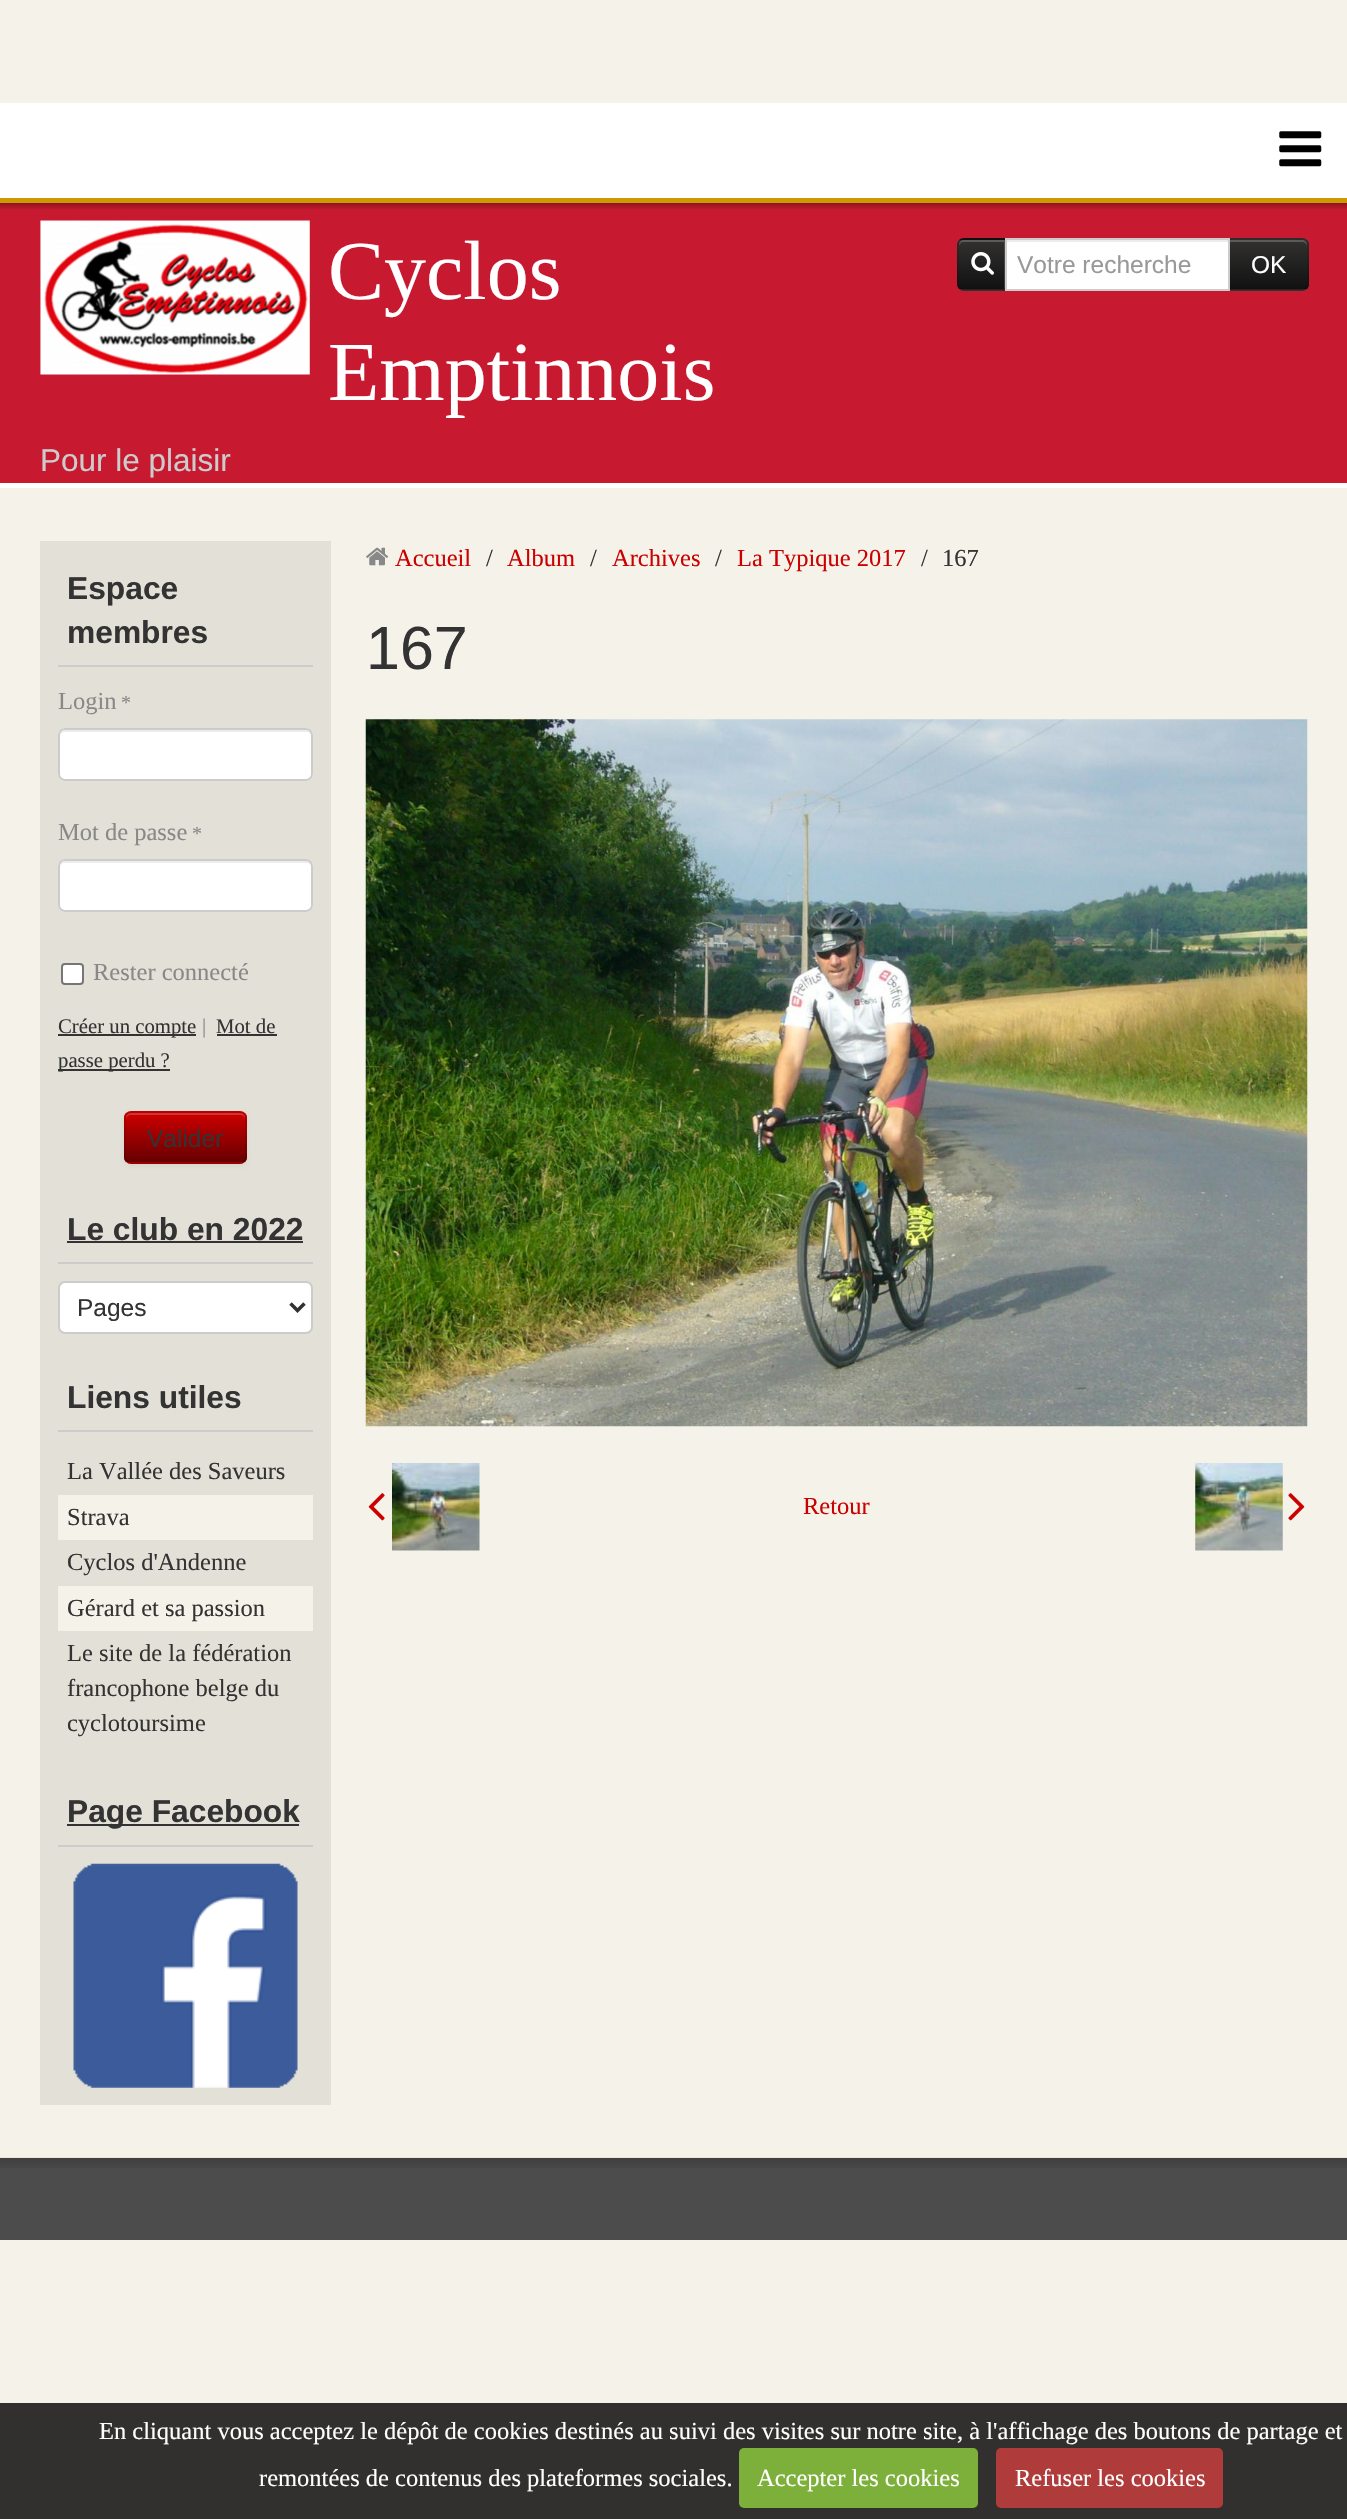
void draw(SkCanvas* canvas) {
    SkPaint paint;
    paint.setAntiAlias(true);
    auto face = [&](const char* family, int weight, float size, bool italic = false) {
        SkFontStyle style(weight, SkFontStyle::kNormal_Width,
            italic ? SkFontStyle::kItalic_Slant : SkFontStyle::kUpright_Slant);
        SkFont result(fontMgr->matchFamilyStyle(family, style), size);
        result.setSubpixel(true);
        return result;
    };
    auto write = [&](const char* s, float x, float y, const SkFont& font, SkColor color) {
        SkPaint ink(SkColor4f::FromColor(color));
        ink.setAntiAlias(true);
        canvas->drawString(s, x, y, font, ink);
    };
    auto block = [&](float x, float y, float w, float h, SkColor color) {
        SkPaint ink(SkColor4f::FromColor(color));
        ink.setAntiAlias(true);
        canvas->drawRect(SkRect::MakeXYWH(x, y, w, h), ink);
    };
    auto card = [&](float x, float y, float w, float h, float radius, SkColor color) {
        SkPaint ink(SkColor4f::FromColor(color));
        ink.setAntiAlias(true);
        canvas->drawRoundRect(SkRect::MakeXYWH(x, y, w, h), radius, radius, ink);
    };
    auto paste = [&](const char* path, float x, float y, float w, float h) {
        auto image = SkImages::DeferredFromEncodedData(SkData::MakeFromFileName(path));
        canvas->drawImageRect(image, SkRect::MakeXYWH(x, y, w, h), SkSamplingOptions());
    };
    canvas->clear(SkColorSetRGB(244, 242, 233));
    block(0, 103, 1347, 95, SK_ColorWHITE);
    block(0, 198, 1347, 5, SkColorSetRGB(204, 153, 0));
    paste("pic1.png", 1279, 131, 43, 36);
    block(0, 203, 1347, 280, SkColorSetRGB(199, 25, 47));
    paste("pic2.png", 0, 203, 1347, 7);
    block(0, 483, 1347, 5, SK_ColorWHITE);
    paste("pic3.png", 40, 220, 270, 155);
    auto kFont1 = face("Liberation Serif", 400, 84);
    write("Cyclos", 328, 299, kFont1, SK_ColorWHITE);
    write("Emptinnois", 328, 400, kFont1, SK_ColorWHITE);
    auto kFont2 = face("Liberation Sans", 400, 31.5f);
    write("Pour le plaisir", 40, 471, kFont2, SkColorSetRGB(204, 204, 204));
    canvas->save();
    canvas->clipPath(SkPathBuilder().moveTo(964, 238).lineTo(1006, 238).lineTo(1006, 291).lineTo(964, 291).cubicTo(960, 291, 957, 288, 957, 284).lineTo(957, 245).cubicTo(957, 241, 960, 238, 964, 238).close().detach(), true);
    {
        const SkColor colors[] = {SkColorSetRGB(50, 49, 48), SkColorSetRGB(17, 17, 17)};
        const float stops[] = {0, 1};
        const SkPoint ends[] = {{982, 191}, {982, 240}};
        paint.setShader(SkGradientShader::MakeLinear(ends, colors, stops, 2, SkTileMode::kClamp));
        paint.setAlpha(255);
    }
    canvas->drawRect(SkRect::MakeXYWH(957, 238, 49, 2), paint);
    {
        const SkColor colors[] = {SkColorSetRGB(50, 49, 48), SkColorSetRGB(17, 17, 17)};
        const float stops[] = {0, 1};
        const SkPoint ends[] = {{982, 240}, {982, 289}};
        paint.setShader(SkGradientShader::MakeLinear(ends, colors, stops, 2, SkTileMode::kClamp));
        paint.setAlpha(255);
    }
    canvas->drawRect(SkRect::MakeXYWH(957, 240, 48, 49), paint);
    {
        const SkColor colors[] = {SkColorSetRGB(50, 49, 48), SkColorSetRGB(17, 17, 17)};
        const float stops[] = {0, 1};
        const SkPoint ends[] = {{982, 289}, {982, 338}};
        paint.setShader(SkGradientShader::MakeLinear(ends, colors, stops, 2, SkTileMode::kClamp));
        paint.setAlpha(255);
    }
    canvas->drawRect(SkRect::MakeXYWH(957, 289, 49, 2), paint);
    canvas->restore();
    paint.setShader(nullptr);
    paint.setColor(SkColorSetARGB(51, 255, 255, 255));
    canvas->drawPath(SkPathBuilder().moveTo(964, 242).lineTo(1004, 242).lineTo(1004, 289).lineTo(1005, 289).lineTo(1005, 240).lineTo(964, 240).cubicTo(961, 240, 959, 242, 959, 245).lineTo(959, 247).cubicTo(959, 244, 961, 242, 964, 242).close().detach(), paint);
    paint.setColor(SkColorSetARGB(26, 0, 0, 0));
    canvas->drawPath(SkPathBuilder().moveTo(964, 238).cubicTo(962, 238, 960, 239, 959, 240).lineTo(961, 241).cubicTo(961, 240, 963, 240, 964, 240).lineTo(1004, 240).lineTo(1006, 238).close().detach(), paint);
    canvas->drawPath(SkPathBuilder().moveTo(1006, 238).lineTo(1006, 290).lineTo(1004, 288).lineTo(1004, 240).close().detach(), paint);
    paint.setColor(SkColorSetARGB(64, 0, 0, 0));
    canvas->drawPath(SkPathBuilder().moveTo(1006, 290).lineTo(964, 290).cubicTo(962, 290, 961, 289, 959, 288).lineTo(960, 287).cubicTo(961, 288, 963, 289, 964, 289).lineTo(1004, 289).lineTo(1004, 288).close().detach(), paint);
    paint.setColor(SkColorSetARGB(26, 0, 0, 0));
    canvas->drawPath(SkPathBuilder().moveTo(957, 243).lineTo(959, 240).lineTo(961, 241).cubicTo(960, 242, 959, 243, 959, 245).lineTo(959, 284).cubicTo(959, 285, 960, 286, 960, 287).lineTo(959, 288).lineTo(957, 286).close().detach(), paint);
    paste("pic4.png", 971, 252, 23, 23);
    block(1007, 242, 221, 47, SK_ColorWHITE);
    paint.setColor(SkColorSetRGB(50, 49, 48));
    canvas->drawPath(SkPathBuilder().moveTo(1229, 238).lineTo(1302, 238).cubicTo(1306, 238, 1309, 241, 1309, 245).lineTo(1309, 284).cubicTo(1309, 288, 1306, 291, 1302, 291).lineTo(1229, 291).close().detach(), paint);
    canvas->save();
    canvas->clipPath(SkPathBuilder().moveTo(1229, 238).lineTo(1302, 238).cubicTo(1306, 238, 1309, 241, 1309, 245).lineTo(1309, 284).cubicTo(1309, 288, 1306, 291, 1302, 291).lineTo(1229, 291).close().detach(), true);
    {
        const SkColor colors[] = {SkColorSetRGB(50, 49, 48), SkColorSetRGB(17, 17, 17)};
        const float stops[] = {0, 1};
        const SkPoint ends[] = {{1269, 240}, {1269, 289}};
        paint.setShader(SkGradientShader::MakeLinear(ends, colors, stops, 2, SkTileMode::kClamp));
        paint.setAlpha(255);
    }
    canvas->drawRect(SkRect::MakeXYWH(1230, 240, 79, 49), paint);
    canvas->restore();
    paint.setShader(nullptr);
    paint.setColor(SkColorSetARGB(51, 255, 255, 255));
    canvas->drawPath(SkPathBuilder().moveTo(1230, 242).lineTo(1302, 242).cubicTo(1305, 242, 1307, 244, 1307, 247).lineTo(1307, 245).cubicTo(1307, 242, 1305, 240, 1302, 240).lineTo(1230, 240).close().detach(), paint);
    paint.setColor(SkColorSetARGB(26, 0, 0, 0));
    canvas->drawPath(SkPathBuilder().moveTo(1228, 238).lineTo(1230, 240).lineTo(1303, 240).lineTo(1306, 241).lineTo(1307, 240).cubicTo(1306, 239, 1304, 238, 1302, 238).close().detach(), paint);
    block(1006, 240, 223, 2, SkColorSetRGB(236, 236, 236));
    canvas->drawPath(SkPathBuilder().moveTo(1309, 284).lineTo(1309, 245).cubicTo(1309, 243, 1308, 241, 1307, 240).lineTo(1306, 241).cubicTo(1306, 242, 1307, 244, 1307, 245).lineTo(1307, 284).cubicTo(1307, 285, 1307, 286, 1306, 287).lineTo(1307, 288).cubicTo(1308, 287, 1309, 286, 1309, 284).close().detach(), paint);
    paint.setColor(SkColorSetARGB(64, 0, 0, 0));
    canvas->drawPath(SkPathBuilder().moveTo(1307, 288).cubicTo(1306, 289, 1304, 290, 1302, 290).lineTo(1229, 290).lineTo(1230, 289).lineTo(1303, 289).lineTo(1306, 287).close().detach(), paint);
    paint.setStyle(SkPaint::kStroke_Style);
    paint.setStrokeWidth(2);
    paint.setColor(SkColorSetRGB(204, 204, 204));
    canvas->drawRect(SkRect::MakeXYWH(1006, 239, 223, 51), paint);
    auto kFont3 = face("Liberation Sans", 400, 24.5f);
    write("Votre recherche", 1017, 273, kFont3, SkColorSetRGB(153, 153, 153));
    write("OK", 1251, 273, kFont3, SK_ColorWHITE);
    block(40, 541, 291, 1564, SkColorSetRGB(226, 224, 215));
    block(58, 665, 255, 2, SkColorSetRGB(204, 204, 204));
    auto kFont4 = face("Liberation Sans", 700, 31.75f);
    write("Espace", 67, 599, kFont4, SkColorSetRGB(51, 51, 51));
    write("membres", 67, 643, kFont4, SkColorSetRGB(51, 51, 51));
    auto kFont5 = face("Liberation Serif", 400, 24.5f);
    write("Login", 58, 709, kFont5, SkColorSetRGB(136, 136, 136));
    auto kFont6 = face("Liberation Serif", 400, 20);
    write("*", 121, 709, kFont6, SkColorSetRGB(136, 136, 136));
    card(58, 728, 255, 53, 7, SK_ColorWHITE);
    paint.setStyle(SkPaint::kFill_Style);
    paint.setColor(SkColorSetRGB(236, 236, 236));
    canvas->drawPath(SkPathBuilder().moveTo(65, 732).lineTo(306, 732).cubicTo(309, 732, 312, 734, 312, 737).cubicTo(312, 734, 311, 730, 307, 730).lineTo(65, 730).cubicTo(61, 730, 60, 734, 60, 737).cubicTo(60, 734, 62, 732, 65, 732).close().detach(), paint);
    paint.setStyle(SkPaint::kStroke_Style);
    paint.setColor(SkColorSetRGB(204, 204, 204));
    canvas->drawRoundRect(SkRect::MakeXYWH(59, 729, 253, 51), 6, 6, paint);
    write("Mot de passe", 58, 840, kFont5, SkColorSetRGB(136, 136, 136));
    write("*", 192, 840, kFont6, SkColorSetRGB(136, 136, 136));
    card(58, 859, 255, 53, 7, SK_ColorWHITE);
    paint.setStyle(SkPaint::kFill_Style);
    paint.setColor(SkColorSetRGB(236, 236, 236));
    canvas->drawPath(SkPathBuilder().moveTo(65, 863).lineTo(306, 863).cubicTo(309, 863, 312, 865, 312, 868).cubicTo(312, 865, 311, 861, 307, 861).lineTo(65, 861).cubicTo(61, 861, 60, 865, 60, 868).cubicTo(60, 865, 62, 863, 65, 863).close().detach(), paint);
    paint.setStyle(SkPaint::kStroke_Style);
    paint.setColor(SkColorSetRGB(204, 204, 204));
    canvas->drawRoundRect(SkRect::MakeXYWH(59, 860, 253, 51), 6, 6, paint);
    paint.setStyle(SkPaint::kFill_Style);
    paint.setColor(SK_ColorWHITE);
    canvas->drawRoundRect(SkRect::MakeXYWH(62, 964, 21, 20), 3, 3, paint);
    paint.setStyle(SkPaint::kStroke_Style);
    paint.setColor(SkColorSetRGB(118, 118, 118));
    canvas->drawRoundRect(SkRect::MakeXYWH(62, 964, 21, 20), 3, 3, paint);
    write("Rester connecté", 93, 980, kFont5, SkColorSetRGB(136, 136, 136));
    block(58, 1034, 138, 2, SkColorSetRGB(51, 51, 51));
    auto kFont7 = face("Liberation Serif", 400, 20.75f);
    write("Créer un compte", 58, 1033, kFont7, SkColorSetRGB(51, 51, 51));
    write("|", 202, 1033, kFont7, SkColorSetRGB(136, 136, 136));
    write("Mot de", 216, 1033, kFont7, SkColorSetRGB(51, 51, 51));
    block(217, 1034, 60, 2, SkColorSetRGB(51, 51, 51));
    block(58, 1069, 112, 2, SkColorSetRGB(51, 51, 51));
    write("passe perdu ?", 58, 1067, kFont7, SkColorSetRGB(51, 51, 51));
    paint.setStyle(SkPaint::kFill_Style);
    paint.setColor(SkColorSetARGB(13, 0, 0, 0));
    paint.setMaskFilter(SkMaskFilter::MakeBlur(kNormal_SkBlurStyle, 2));
    canvas->drawRoundRect(SkRect::MakeXYWH(124, 1113, 123, 53), 7, 7, paint);
    paint.setMaskFilter(nullptr);
    card(124, 1111, 123, 53, 7, SkColorSetRGB(204, 0, 0));
    canvas->save();
    canvas->clipPath(SkPathBuilder().moveTo(131, 1111).lineTo(240, 1111).cubicTo(244, 1111, 247, 1114, 247, 1118).lineTo(247, 1157).cubicTo(247, 1161, 244, 1164, 240, 1164).lineTo(131, 1164).cubicTo(127, 1164, 124, 1161, 124, 1157).lineTo(124, 1118).cubicTo(124, 1114, 127, 1111, 131, 1111).close().detach(), true);
    {
        const SkColor colors[] = {SkColorSetRGB(204, 0, 0), SkColorSetRGB(102, 0, 0)};
        const float stops[] = {0, 1};
        const SkPoint ends[] = {{186, 1113}, {186, 1162}};
        paint.setShader(SkGradientShader::MakeLinear(ends, colors, stops, 2, SkTileMode::kClamp));
        paint.setAlpha(255);
    }
    canvas->drawRect(SkRect::MakeXYWH(124, 1113, 123, 49), paint);
    canvas->restore();
    paint.setShader(nullptr);
    paint.setColor(SkColorSetARGB(51, 255, 255, 255));
    canvas->drawPath(SkPathBuilder().moveTo(131, 1115).lineTo(240, 1115).cubicTo(243, 1115, 245, 1117, 245, 1120).lineTo(245, 1118).cubicTo(245, 1115, 243, 1113, 240, 1113).lineTo(131, 1113).cubicTo(128, 1113, 126, 1115, 126, 1118).lineTo(126, 1120).cubicTo(126, 1117, 128, 1115, 131, 1115).close().detach(), paint);
    paint.setStyle(SkPaint::kStroke_Style);
    paint.setStrokeWidth(1.8f);
    paint.setColor(SkColorSetARGB(64, 0, 0, 0));
    canvas->drawPath(SkPathBuilder().moveTo(244, 1161).cubicTo(243, 1162, 241.5f, 1163, 240, 1163).lineTo(131, 1163).cubicTo(129.5f, 1163, 128, 1162, 127, 1161).detach(), paint);
    paint.setColor(SkColorSetARGB(26, 0, 0, 0));
    canvas->drawPath(SkPathBuilder().moveTo(127, 1161).cubicTo(124, 1158.5f, 125, 1153.5f, 125, 1150.5f).lineTo(125, 1137.5f).cubicTo(125, 1109.5f, 121, 1112, 149.5f, 1112).lineTo(221.5f, 1112).cubicTo(250, 1112, 246, 1109.5f, 246, 1137.5f).lineTo(246, 1150.5f).cubicTo(246, 1153.5f, 247, 1158.5f, 244, 1161).detach(), paint);
    write("Valider", 147, 1147, kFont3, SkColorSetRGB(51, 51, 51));
    block(58, 1262, 255, 2, SkColorSetRGB(204, 204, 204));
    write("Le club en 2022", 67, 1240, kFont4, SkColorSetRGB(51, 51, 51));
    block(67, 1241, 236, 2, SkColorSetRGB(51, 51, 51));
    paint.setStyle(SkPaint::kFill_Style);
    paint.setColor(SK_ColorWHITE);
    canvas->drawRoundRect(SkRect::MakeXYWH(59, 1282, 253, 51), 6, 6, paint);
    paint.setStyle(SkPaint::kStroke_Style);
    paint.setStrokeWidth(2);
    paint.setColor(SkColorSetRGB(204, 204, 204));
    canvas->drawRoundRect(SkRect::MakeXYWH(59, 1282, 253, 51), 6, 6, paint);
    paint.setStrokeWidth(3.5f);
    paint.setColor(SkColorSetRGB(50, 49, 48));
    canvas->drawPath(SkPathBuilder().moveTo(290.5f, 1303.5f).lineTo(297.5f, 1310.5f).lineTo(304.5f, 1303.5f).detach(), paint);
    write("Pages", 77, 1316, kFont3, SkColorSetRGB(51, 51, 51));
    block(58, 1430, 255, 2, SkColorSetRGB(204, 204, 204));
    write("Liens utiles", 67, 1408, kFont4, SkColorSetRGB(51, 51, 51));
    write("La Vallée des Saveurs", 67, 1479, kFont5, SkColorSetRGB(51, 51, 51));
    block(58, 1495, 255, 45, SkColorSetRGB(244, 242, 233));
    write("Strava", 67, 1525, kFont5, SkColorSetRGB(51, 51, 51));
    write("Cyclos d'Andenne", 67, 1570, kFont5, SkColorSetRGB(51, 51, 51));
    block(58, 1586, 255, 45, SkColorSetRGB(244, 242, 233));
    write("Gérard et sa passion", 67, 1616, kFont5, SkColorSetRGB(51, 51, 51));
    write("Le site de la fédération", 67, 1661, kFont5, SkColorSetRGB(51, 51, 51));
    write("francophone belge du", 67, 1696, kFont5, SkColorSetRGB(51, 51, 51));
    write("cyclotoursime", 67, 1731, kFont5, SkColorSetRGB(51, 51, 51));
    block(58, 1845, 255, 2, SkColorSetRGB(204, 204, 204));
    block(67, 1824, 232, 2, SkColorSetRGB(51, 51, 51));
    write("Page Facebook", 67, 1822, kFont4, SkColorSetRGB(51, 51, 51));
    paste("pic5.png", 73, 1863, 225, 225);
    paste("pic6.png", 366, 547, 23, 19);
    write("Accueil", 395, 566, kFont5, SkColorSetRGB(204, 0, 0));
    write("/", 486, 566, kFont5, SkColorSetRGB(51, 51, 51));
    write("Album", 507, 566, kFont5, SkColorSetRGB(204, 0, 0));
    write("/", 590, 566, kFont5, SkColorSetRGB(51, 51, 51));
    write("Archives", 612, 566, kFont5, SkColorSetRGB(204, 0, 0));
    write("/", 715, 566, kFont5, SkColorSetRGB(51, 51, 51));
    write("La Typique 2017", 737, 566, kFont5, SkColorSetRGB(204, 0, 0));
    write("/", 921, 566, kFont5, SkColorSetRGB(51, 51, 51));
    write("167", 942, 566, kFont5, SkColorSetRGB(51, 51, 51));
    auto kFont8 = face("Liberation Sans", 400, 61);
    write("167", 366, 669, kFont8, SkColorSetRGB(51, 51, 51));
    paste("pic7.png", 365, 719, 943, 708);
    paste("pic8.png", 368, 1493, 17, 28);
    paste("pic9.png", 392, 1463, 88, 88);
    write("Retour", 803, 1514, kFont5, SkColorSetRGB(204, 0, 0));
    paste("pic10.png", 1195, 1463, 88, 88);
    paste("pic11.png", 1288, 1493, 17, 28);
    block(0, 2158, 1347, 82, SkColorSetRGB(76, 76, 76));
    paste("pic12.png", 0, 2157, 1347, 11);
    block(0, 2403, 1347, 116, SkColorSetRGB(49, 48, 46));
    write("En cliquant vous acceptez le dépôt de cookies destinés au suivi des visites sur notre site, à l'affichage des boutons de partage et", 99, 2439, kFont5, SK_ColorWHITE);
    write("remontées de contenus des plateformes sociales.", 259, 2486, kFont5, SK_ColorWHITE);
    card(739, 2448, 239, 60, 5, SkColorSetRGB(125, 175, 59));
    write("Accepter les cookies", 757, 2486, kFont5, SK_ColorWHITE);
    card(996, 2448, 227, 60, 5, SkColorSetRGB(175, 59, 59));
    write("Refuser les cookies", 1015, 2486, kFont5, SK_ColorWHITE);
}
